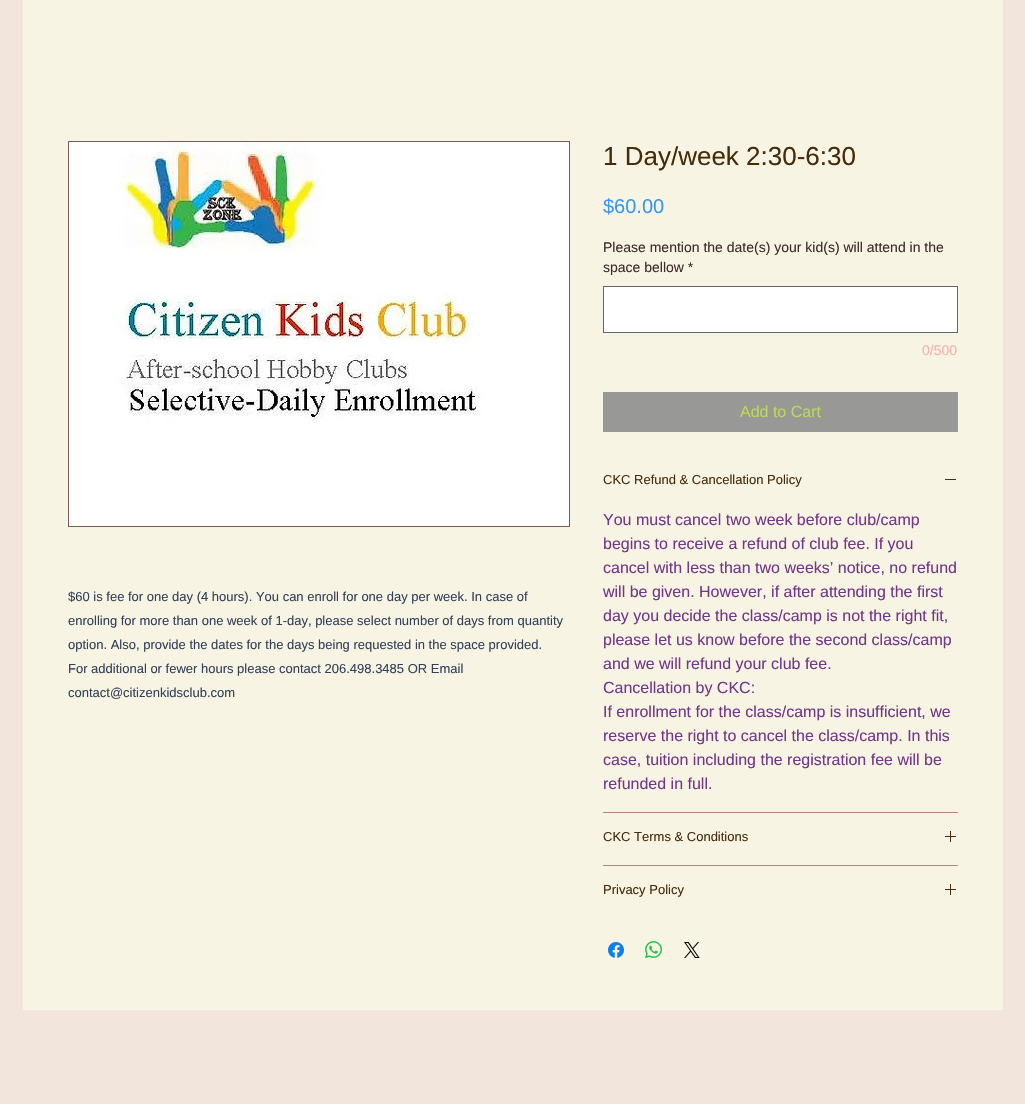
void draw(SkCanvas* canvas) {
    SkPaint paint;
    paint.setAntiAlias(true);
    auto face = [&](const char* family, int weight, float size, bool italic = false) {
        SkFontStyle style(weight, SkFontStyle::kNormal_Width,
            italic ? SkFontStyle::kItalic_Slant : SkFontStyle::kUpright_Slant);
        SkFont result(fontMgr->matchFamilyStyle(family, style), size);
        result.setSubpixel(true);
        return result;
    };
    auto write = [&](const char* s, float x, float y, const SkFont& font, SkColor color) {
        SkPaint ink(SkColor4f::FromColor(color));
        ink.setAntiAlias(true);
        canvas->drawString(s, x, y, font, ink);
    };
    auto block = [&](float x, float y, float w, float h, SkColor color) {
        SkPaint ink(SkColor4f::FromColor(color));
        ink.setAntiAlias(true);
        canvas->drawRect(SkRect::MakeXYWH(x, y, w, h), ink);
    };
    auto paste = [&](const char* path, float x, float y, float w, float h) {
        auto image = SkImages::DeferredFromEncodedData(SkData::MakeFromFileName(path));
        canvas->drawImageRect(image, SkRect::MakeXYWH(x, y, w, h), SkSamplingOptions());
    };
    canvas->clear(SkColorSetRGB(242, 230, 220));
    block(23, 0, 980, 1009, SkColorSetRGB(248, 244, 228));
    paint.setStyle(SkPaint::kStroke_Style);
    paint.setStrokeWidth(1);
    paint.setColor(SkColorSetRGB(123, 89, 85));
    canvas->drawRect(SkRect::MakeXYWH(68.5f, 141.5f, 501, 385), paint);
    paste("pic1.png", 69, 142, 500, 384);
    auto kFont1 = face("Liberation Sans", 400, 13);
    write("$60 is fee for one day (4 hours). You can enroll for one day per week. In case of", 68, 601, kFont1, SkColorSetRGB(50, 65, 88));
    write("enrolling for more than one week of 1-day, please select number of days from quantity", 68, 625, kFont1, SkColorSetRGB(50, 65, 88));
    write("option. Also, provide the dates for the days being requested in the space provided.", 68, 649, kFont1, SkColorSetRGB(50, 65, 88));
    write("For additional or fewer hours please contact 206.498.3485 OR Email", 68, 673, kFont1, SkColorSetRGB(50, 65, 88));
    write("contact@citizenkidsclub.com", 68, 697, kFont1, SkColorSetRGB(50, 65, 88));
    auto kFont2 = face("Liberation Sans", 400, 26);
    write("1 Day/week 2:30-6:30", 603, 165, kFont2, SkColorSetRGB(71, 44, 12));
    auto kFont3 = face("Liberation Sans", 400, 20);
    write("$60.00", 603, 213, kFont3, SkColorSetRGB(56, 153, 236));
    auto kFont4 = face("Liberation Sans", 400, 14);
    write("Please mention the date(s) your kid(s) will attend in the", 603, 252, kFont4, SkColorSetRGB(61, 44, 42));
    write("space bellow *", 603, 272, kFont4, SkColorSetRGB(61, 44, 42));
    paint.setStyle(SkPaint::kFill_Style);
    paint.setColor(SK_ColorWHITE);
    canvas->drawRect(SkRect::MakeXYWH(603.5f, 286.5f, 354, 46), paint);
    paint.setStyle(SkPaint::kStroke_Style);
    paint.setColor(SkColorSetRGB(102, 102, 102));
    canvas->drawRect(SkRect::MakeXYWH(603.5f, 286.5f, 354, 46), paint);
    write("0/500", 922, 355, kFont4, SkColorSetRGB(247, 178, 170));
    block(603, 392, 355, 40, SkColorSetRGB(152, 152, 151));
    auto kFont5 = face("Liberation Sans", 400, 16);
    write("Add to Cart", 740, 417, kFont5, SkColorSetRGB(186, 218, 85));
    block(603, 812, 355, 1, SkColorSetRGB(185, 133, 128));
    write("CKC Refund & Cancellation Policy", 603, 484, kFont1, SkColorSetRGB(71, 44, 12));
    block(945, 479, 11, 1, SkColorSetRGB(71, 44, 12));
    write("You must cancel two week before club/camp", 603, 525, kFont5, SkColorSetRGB(115, 55, 135));
    write("begins to receive a refund of club fee. If you", 603, 549, kFont5, SkColorSetRGB(115, 55, 135));
    write("cancel with less than two weeks’ notice, no refund", 603, 573, kFont5, SkColorSetRGB(115, 55, 135));
    write("will be given. However, if after attending the first", 603, 597, kFont5, SkColorSetRGB(115, 55, 135));
    write("day you decide the class/camp is not the right fit,", 603, 621, kFont5, SkColorSetRGB(115, 55, 135));
    write("please let us know before the second class/camp", 603, 645, kFont5, SkColorSetRGB(115, 55, 135));
    write("and we will refund your club fee.", 603, 669, kFont5, SkColorSetRGB(115, 55, 135));
    write("Cancellation by CKC:", 603, 693, kFont5, SkColorSetRGB(115, 55, 135));
    write("If enrollment for the class/camp is insufficient, we", 603, 717, kFont5, SkColorSetRGB(115, 55, 135));
    write("reserve the right to cancel the class/camp. In this", 603, 741, kFont5, SkColorSetRGB(115, 55, 135));
    write("case, tuition including the registration fee will be", 603, 765, kFont5, SkColorSetRGB(115, 55, 135));
    write("refunded in full.", 603, 789, kFont5, SkColorSetRGB(115, 55, 135));
    block(603, 865, 355, 1, SkColorSetRGB(185, 133, 128));
    write("CKC Terms & Conditions", 603, 841, kFont1, SkColorSetRGB(71, 44, 12));
    paste("pic2.png", 945, 831, 11, 11);
    write("Privacy Policy", 603, 894, kFont1, SkColorSetRGB(71, 44, 12));
    paste("pic2.png", 945, 884, 11, 11);
    paste("pic3.png", 608, 942, 16, 16);
    paste("pic4.png", 645, 941, 17, 17);
    paste("pic5.png", 684, 942, 16, 16);
    block(23, 1009, 980, 1, SkColorSetRGB(251, 243, 243));
}
